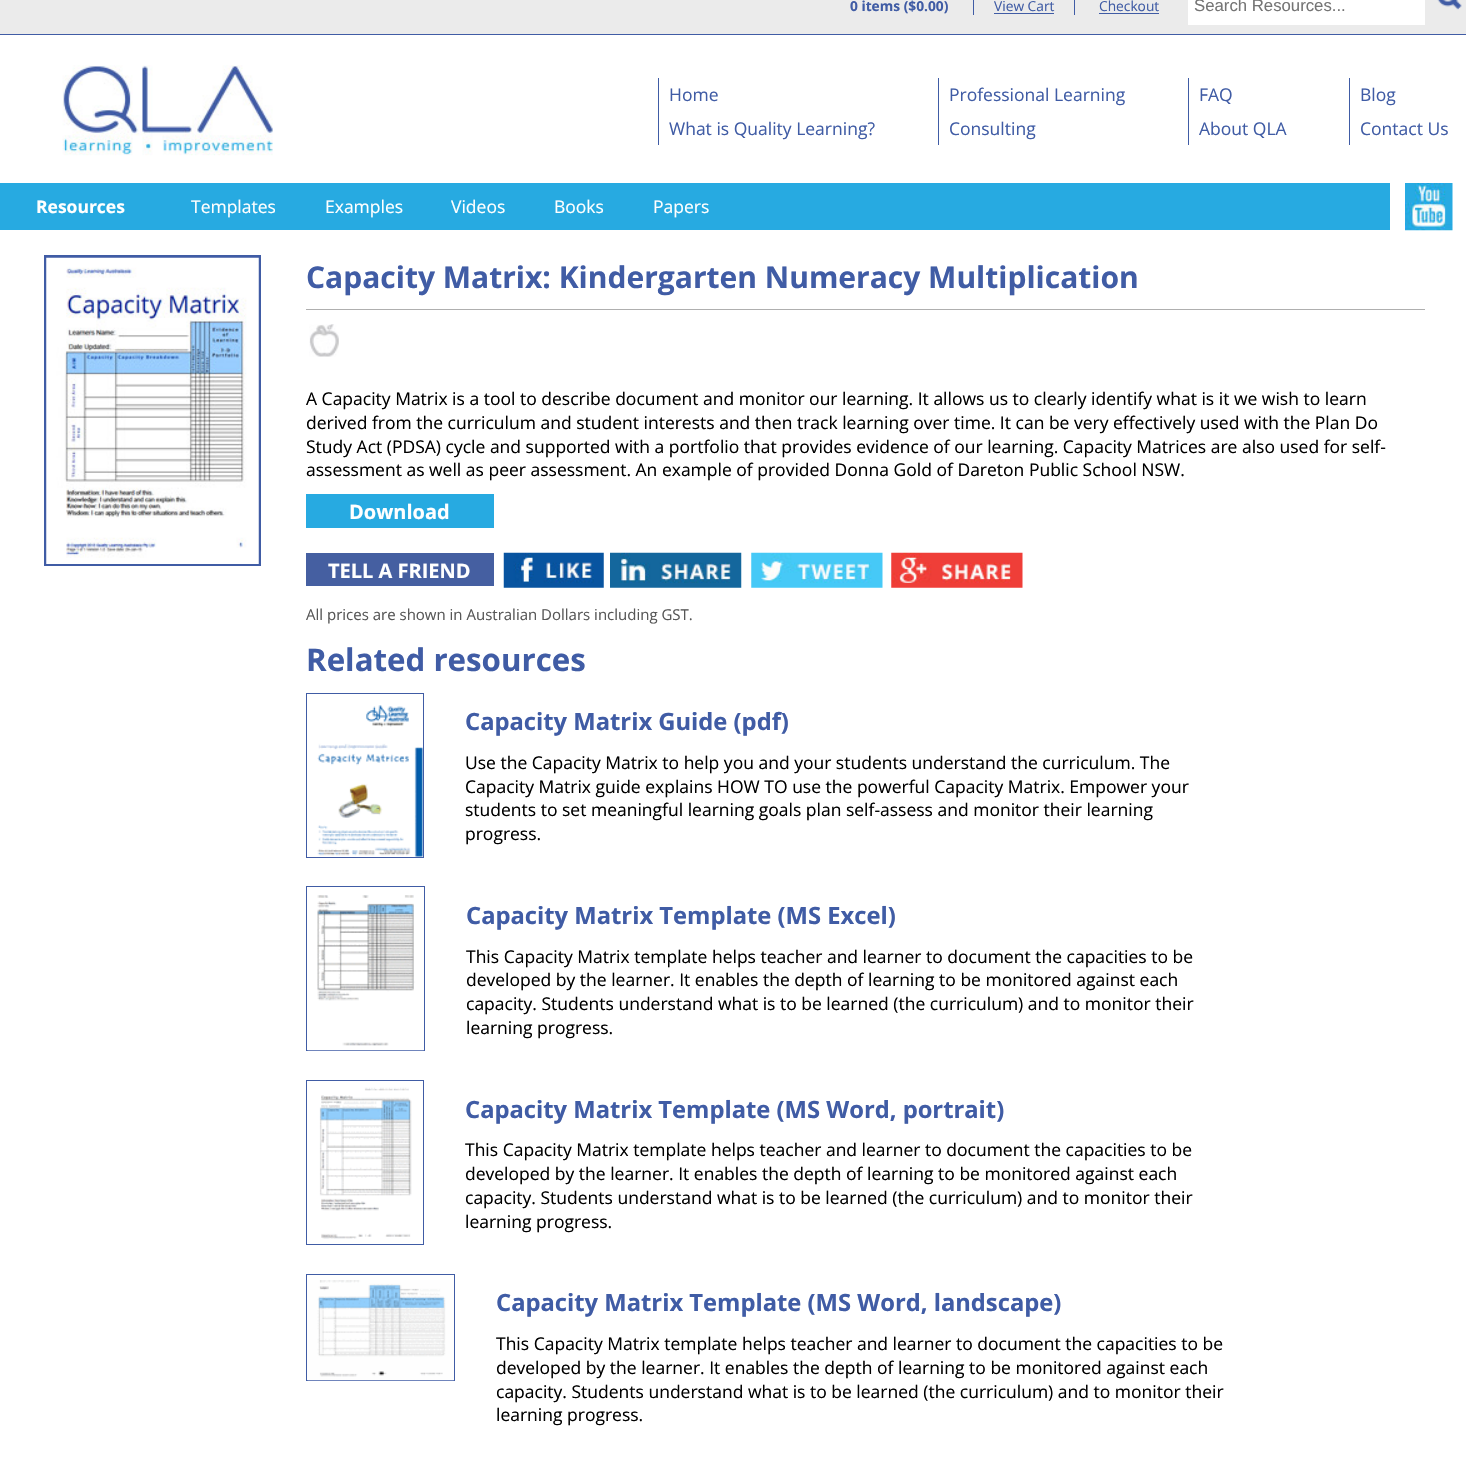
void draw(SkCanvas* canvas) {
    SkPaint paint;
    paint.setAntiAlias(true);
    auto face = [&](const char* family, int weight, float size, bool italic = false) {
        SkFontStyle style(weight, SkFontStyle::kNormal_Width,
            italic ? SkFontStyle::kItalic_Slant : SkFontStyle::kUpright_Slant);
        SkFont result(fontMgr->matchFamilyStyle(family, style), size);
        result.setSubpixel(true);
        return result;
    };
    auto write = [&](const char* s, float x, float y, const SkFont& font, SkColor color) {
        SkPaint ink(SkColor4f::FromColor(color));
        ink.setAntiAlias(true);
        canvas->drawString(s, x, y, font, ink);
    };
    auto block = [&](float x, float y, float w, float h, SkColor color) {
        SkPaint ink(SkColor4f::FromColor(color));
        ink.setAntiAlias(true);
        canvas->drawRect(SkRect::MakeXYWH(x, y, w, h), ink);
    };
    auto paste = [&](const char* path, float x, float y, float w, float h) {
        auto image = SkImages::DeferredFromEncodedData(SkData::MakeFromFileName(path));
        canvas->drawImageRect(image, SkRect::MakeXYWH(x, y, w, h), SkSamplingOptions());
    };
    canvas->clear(SK_ColorWHITE);
    block(0, 0, 1466, 34, SkColorSetRGB(235, 235, 235));
    block(0, 34, 1466, 1, SkColorSetRGB(64, 92, 165));
    auto kFont1 = face("Open Sans", 700, 13.75f);
    write("0 items ($0.00)", 850, 11, kFont1, SkColorSetRGB(64, 92, 165));
    block(1074, 0, 1, 15, SkColorSetRGB(64, 92, 165));
    block(973, 0, 1, 15, SkColorSetRGB(64, 92, 165));
    auto kFont2 = face("Open Sans", 400, 13.75f);
    write("View Cart", 994, 11, kFont2, SkColorSetRGB(64, 92, 165));
    block(994, 13, 60, 1, SkColorSetRGB(64, 92, 165));
    write("Checkout", 1099, 11, kFont2, SkColorSetRGB(64, 92, 165));
    block(1099, 13, 60, 1, SkColorSetRGB(64, 92, 165));
    block(1188, 0, 237, 25, SK_ColorWHITE);
    auto kFont3 = face("Liberation Sans", 400, 16.75f);
    write("Search Resources...", 1194, 11, kFont3, SkColorSetRGB(117, 117, 117));
    paste("pic1.png", 1437, 0, 25, 10);
    paste("pic2.png", 62, 65, 211, 91);
    block(658, 78, 1, 67, SkColorSetRGB(64, 92, 165));
    auto kFont4 = face("Open Sans", 400, 17.5f);
    write("Home", 669, 101, kFont4, SkColorSetRGB(64, 92, 165));
    write("What is Quality Learning?", 669, 135, kFont4, SkColorSetRGB(64, 92, 165));
    block(938, 78, 1, 67, SkColorSetRGB(64, 92, 165));
    write("Professional Learning", 949, 101, kFont4, SkColorSetRGB(64, 92, 165));
    write("Consulting", 949, 135, kFont4, SkColorSetRGB(64, 92, 165));
    block(1188, 78, 1, 67, SkColorSetRGB(64, 92, 165));
    write("FAQ", 1199, 101, kFont4, SkColorSetRGB(64, 92, 165));
    write("About QLA", 1199, 135, kFont4, SkColorSetRGB(64, 92, 165));
    block(1349, 78, 1, 67, SkColorSetRGB(64, 92, 165));
    write("Blog", 1360, 101, kFont4, SkColorSetRGB(64, 92, 165));
    write("Contact Us", 1360, 135, kFont4, SkColorSetRGB(64, 92, 165));
    block(0, 183, 1390, 47, SkColorSetRGB(39, 170, 225));
    auto kFont5 = face("Open Sans", 700, 17.5f);
    write("Resources", 36, 213, kFont5, SK_ColorWHITE);
    write("Templates", 191, 213, kFont4, SK_ColorWHITE);
    write("Examples", 325, 213, kFont4, SK_ColorWHITE);
    write("Videos", 451, 213, kFont4, SK_ColorWHITE);
    write("Books", 554, 213, kFont4, SK_ColorWHITE);
    write("Papers", 653, 213, kFont4, SK_ColorWHITE);
    paste("pic3.png", 1405, 183, 48, 48);
    paint.setStyle(SkPaint::kStroke_Style);
    paint.setStrokeWidth(3);
    paint.setColor(SkColorSetRGB(64, 92, 165));
    canvas->drawRect(SkRect::MakeXYWH(45.5f, 256.5f, 214, 308), paint);
    paste("pic4.png", 46, 257, 213, 307);
    auto kFont6 = face("Open Sans", 700, 30);
    write("Capacity Matrix: Kindergarten Numeracy Multiplication", 306, 288, kFont6, SkColorSetRGB(64, 92, 165));
    block(306, 309, 1119, 1, SkColorSetRGB(175, 175, 175));
    paste("pic5.png", 309, 324, 30, 33);
    write("A Capacity Matrix is a tool to describe document and monitor our learning. It allows us to clearly identify what is it we wish to learn", 306, 405, kFont4, SK_ColorBLACK);
    write("derived from the curriculum and student interests and then track learning over time. It can be very effectively used with the Plan Do", 306, 429, kFont4, SK_ColorBLACK);
    write("Study Act (PDSA) cycle and supported with a portfolio that provides evidence of our learning. Capacity Matrices are also used for self-", 306, 453, kFont4, SK_ColorBLACK);
    write("assessment as well as peer assessment. An example of provided Donna Gold of Dareton Public School NSW.", 306, 476, kFont4, SK_ColorBLACK);
    block(306, 494, 188, 34, SkColorSetRGB(39, 170, 225));
    auto kFont7 = face("Open Sans", 700, 20);
    write("Download", 349, 519, kFont7, SK_ColorWHITE);
    block(306, 553, 188, 33, SkColorSetRGB(69, 95, 161));
    write("TELL A FRIEND", 328, 578, kFont7, SK_ColorWHITE);
    paste("pic6.png", 503, 552, 101, 36);
    paste("pic7.png", 610, 552, 132, 36);
    paste("pic8.png", 751, 552, 132, 36);
    paste("pic9.png", 891, 552, 132, 36);
    auto kFont8 = face("Open Sans", 400, 15);
    write("All prices are shown in Australian Dollars including GST.", 306, 620, kFont8, SkColorSetRGB(87, 87, 87));
    auto kFont9 = face("Open Sans", 700, 31.25f);
    write("Related resources", 306, 671, kFont9, SkColorSetRGB(64, 92, 165));
    paint.setStrokeWidth(1);
    canvas->drawRect(SkRect::MakeXYWH(306.5f, 693.5f, 117, 164), paint);
    paste("pic10.png", 317, 705, 106, 152);
    auto kFont10 = face("Open Sans", 700, 23.75f);
    write("Capacity Matrix Guide (pdf)", 465, 730, kFont10, SkColorSetRGB(64, 92, 165));
    write("Use the Capacity Matrix to help you and your students understand the curriculum. The", 465, 769, kFont4, SK_ColorBLACK);
    write("Capacity Matrix guide explains HOW TO use the powerful Capacity Matrix. Empower your", 465, 793, kFont4, SK_ColorBLACK);
    write("students to set meaningful learning goals plan self-assess and monitor their learning", 465, 816, kFont4, SK_ColorBLACK);
    write("progress.", 465, 840, kFont4, SK_ColorBLACK);
    canvas->drawRect(SkRect::MakeXYWH(306.5f, 886.5f, 118, 164), paint);
    paste("pic11.png", 307, 895, 117, 156);
    write("Capacity Matrix Template (MS Excel)", 466, 924, kFont10, SkColorSetRGB(64, 92, 165));
    write("This Capacity Matrix template helps teacher and learner to document the capacities to be", 466, 963, kFont4, SK_ColorBLACK);
    write("developed by the learner. It enables the depth of learning to be monitored against each", 466, 986, kFont4, SK_ColorBLACK);
    write("capacity. Students understand what is to be learned (the curriculum) and to monitor their", 466, 1010, kFont4, SK_ColorBLACK);
    write("learning progress.", 466, 1034, kFont4, SK_ColorBLACK);
    canvas->drawRect(SkRect::MakeXYWH(306.5f, 1080.5f, 117, 164), paint);
    paste("pic12.png", 319, 1087, 93, 152);
    write("Capacity Matrix Template (MS Word, portrait)", 465, 1118, kFont10, SkColorSetRGB(64, 92, 165));
    write("This Capacity Matrix template helps teacher and learner to document the capacities to be", 465, 1156, kFont4, SK_ColorBLACK);
    write("developed by the learner. It enables the depth of learning to be monitored against each", 465, 1180, kFont4, SK_ColorBLACK);
    write("capacity. Students understand what is to be learned (the curriculum) and to monitor their", 465, 1204, kFont4, SK_ColorBLACK);
    write("learning progress.", 465, 1228, kFont4, SK_ColorBLACK);
    canvas->drawRect(SkRect::MakeXYWH(306.5f, 1274.5f, 148, 106), paint);
    paste("pic13.png", 307, 1280, 147, 101);
    write("Capacity Matrix Template (MS Word, landscape)", 496, 1311, kFont10, SkColorSetRGB(64, 92, 165));
    write("This Capacity Matrix template helps teacher and learner to document the capacities to be", 496, 1350, kFont4, SK_ColorBLACK);
    write("developed by the learner. It enables the depth of learning to be monitored against each", 496, 1374, kFont4, SK_ColorBLACK);
    write("capacity. Students understand what is to be learned (the curriculum) and to monitor their", 496, 1398, kFont4, SK_ColorBLACK);
    write("learning progress.", 496, 1421, kFont4, SK_ColorBLACK);
}
